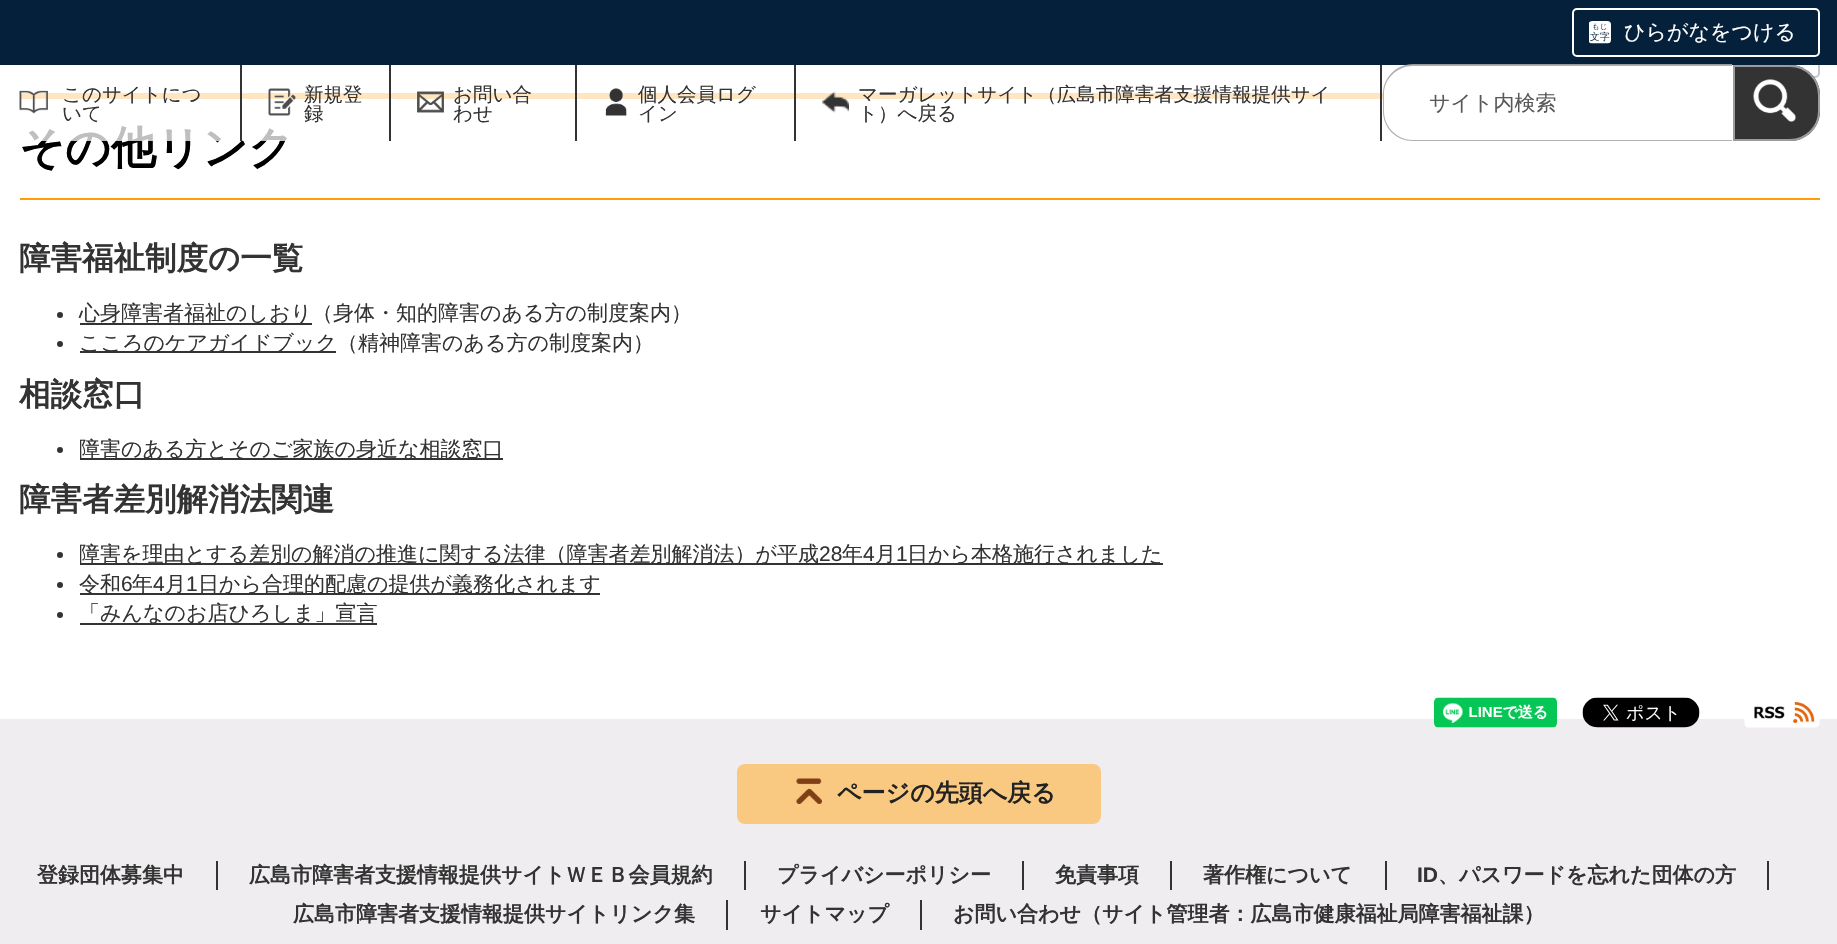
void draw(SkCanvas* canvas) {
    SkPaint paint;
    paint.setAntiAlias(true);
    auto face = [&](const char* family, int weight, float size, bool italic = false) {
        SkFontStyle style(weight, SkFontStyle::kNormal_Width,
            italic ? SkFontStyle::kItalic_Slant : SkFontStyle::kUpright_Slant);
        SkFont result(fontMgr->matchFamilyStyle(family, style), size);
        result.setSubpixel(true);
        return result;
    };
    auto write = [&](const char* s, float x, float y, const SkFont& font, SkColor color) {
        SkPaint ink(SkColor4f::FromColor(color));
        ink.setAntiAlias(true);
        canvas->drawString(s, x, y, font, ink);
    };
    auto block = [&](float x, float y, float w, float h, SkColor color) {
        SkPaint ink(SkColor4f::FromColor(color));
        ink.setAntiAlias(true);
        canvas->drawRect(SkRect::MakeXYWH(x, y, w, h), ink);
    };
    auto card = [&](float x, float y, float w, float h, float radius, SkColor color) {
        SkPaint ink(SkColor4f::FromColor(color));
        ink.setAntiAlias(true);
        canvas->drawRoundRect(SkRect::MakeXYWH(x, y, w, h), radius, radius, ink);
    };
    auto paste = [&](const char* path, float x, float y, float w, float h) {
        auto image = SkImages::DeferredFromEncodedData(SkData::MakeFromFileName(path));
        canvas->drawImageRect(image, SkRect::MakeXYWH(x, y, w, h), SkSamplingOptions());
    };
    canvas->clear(SK_ColorWHITE);
    paint.setStyle(SkPaint::kStroke_Style);
    paint.setStrokeWidth(2);
    paint.setColor(SkColorSetRGB(5, 32, 58));
    canvas->drawRoundRect(SkRect::MakeXYWH(1618, 30, 201, 47), 4, 4, paint);
    block(20, 93, 1800, 6, SkColorSetRGB(255, 156, 8));
    auto kFont1 = face("WenQuanYi Zen Hei", 700, 45);
    write("その他リンク", 19, 163, kFont1, SK_ColorBLACK);
    block(20, 65, 1800, 76, SkColorSetARGB(191, 255, 255, 255));
    block(0, 0, 1837, 65, SkColorSetRGB(5, 32, 58));
    paste("pic1.png", 1589, 21, 22, 23);
    paint.setColor(SK_ColorWHITE);
    canvas->drawRoundRect(SkRect::MakeXYWH(1573, 9, 246, 47), 4, 4, paint);
    auto kFont2 = face("WenQuanYi Zen Hei", 500, 21);
    write("ひらがなをつける", 1624, 39, kFont2, SK_ColorWHITE);
    block(240, 65, 2, 76, SkColorSetRGB(51, 51, 51));
    paste("pic2.png", 19, 90, 29, 24);
    auto kFont3 = face("WenQuanYi Zen Hei", 500, 19.5f);
    write("このサイトにつ", 62, 101, kFont3, SkColorSetRGB(51, 51, 51));
    write("いて", 62, 120, kFont3, SkColorSetRGB(51, 51, 51));
    block(389, 65, 2, 76, SkColorSetRGB(51, 51, 51));
    paste("pic3.png", 268, 88, 28, 28);
    write("新規登", 304, 101, kFont3, SkColorSetRGB(51, 51, 51));
    write("録", 304, 120, kFont3, SkColorSetRGB(51, 51, 51));
    block(575, 65, 2, 76, SkColorSetRGB(51, 51, 51));
    paste("pic4.png", 417, 91, 27, 22);
    write("お問い合", 453, 101, kFont3, SkColorSetRGB(51, 51, 51));
    write("わせ", 453, 120, kFont3, SkColorSetRGB(51, 51, 51));
    block(794, 65, 2, 76, SkColorSetRGB(51, 51, 51));
    paste("pic5.png", 605, 88, 22, 28);
    write("個人会員ログ", 638, 101, kFont3, SkColorSetRGB(51, 51, 51));
    write("イン", 638, 120, kFont3, SkColorSetRGB(51, 51, 51));
    block(1380, 65, 2, 76, SkColorSetRGB(51, 51, 51));
    paste("pic6.png", 822, 91, 27, 22);
    write("マーガレットサイト（広島市障害者支援情報提供サイ", 858, 101, kFont3, SkColorSetRGB(51, 51, 51));
    write("ト）へ戻る", 858, 120, kFont3, SkColorSetRGB(51, 51, 51));
    paint.setStyle(SkPaint::kFill_Style);
    canvas->drawPath(SkPathBuilder().moveTo(1413, 65).lineTo(1733, 65).lineTo(1733, 141).lineTo(1413, 141).cubicTo(1396.5f, 141, 1383, 127.5f, 1383, 111).lineTo(1383, 95).cubicTo(1383, 78.5f, 1396.5f, 65, 1413, 65).close().detach(), paint);
    paint.setColor(SkColorSetARGB(230, 167, 167, 167));
    canvas->drawPath(SkPathBuilder(SkPathFillType::kEvenOdd).moveTo(1413, 64).lineTo(1732, 64).lineTo(1732, 141).lineTo(1413, 141).cubicTo(1396, 141, 1383, 128, 1383, 111).lineTo(1383, 94).cubicTo(1383, 78, 1396, 64, 1413, 64).close().moveTo(1413, 66).lineTo(1732, 66).lineTo(1732, 140).lineTo(1413, 140).cubicTo(1397, 140, 1384, 127, 1384, 111).lineTo(1384, 94).cubicTo(1384, 79, 1397, 66, 1413, 66).close().detach(), paint);
    write("サイト内検索", 1429, 110, kFont2, SkColorSetRGB(89, 89, 89));
    paint.setColor(SkColorSetRGB(51, 51, 51));
    canvas->drawPath(SkPathBuilder().moveTo(1733, 65).lineTo(1790, 65).cubicTo(1806.5f, 65, 1820, 78.5f, 1820, 95).lineTo(1820, 111).cubicTo(1820, 127.5f, 1806.5f, 141, 1790, 141).lineTo(1733, 141).close().detach(), paint);
    paint.setStyle(SkPaint::kStroke_Style);
    paint.setColor(SkColorSetARGB(230, 167, 167, 167));
    canvas->drawPath(SkPathBuilder().moveTo(1734, 66).lineTo(1790, 66).cubicTo(1806, 66, 1819, 79, 1819, 95).lineTo(1819, 111).cubicTo(1819, 127, 1806, 140, 1790, 140).lineTo(1734, 140).close().detach(), paint);
    paste("pic7.png", 1753, 79, 43, 43);
    block(20, 198, 1800, 2, SkColorSetRGB(255, 156, 8));
    auto kFont4 = face("WenQuanYi Zen Hei", 700, 31.5f);
    write("障害福祉制度の一覧", 19, 269, kFont4, SkColorSetRGB(51, 51, 51));
    paint.setStyle(SkPaint::kFill_Style);
    paint.setColor(SkColorSetRGB(51, 51, 51));
    canvas->drawCircle(60, 315, 3, paint);
    block(80, 323, 232, 2, SkColorSetRGB(51, 51, 51));
    write("心身障害者福祉のしおり（身体・知的障害のある方の制度案内）", 79, 320, kFont2, SkColorSetRGB(51, 51, 51));
    canvas->drawCircle(60, 344, 3, paint);
    block(80, 351, 256, 2, SkColorSetRGB(51, 51, 51));
    write("こころのケアガイドブック（精神障害のある方の制度案内）", 79, 350, kFont2, SkColorSetRGB(51, 51, 51));
    write("相談窓口", 19, 405, kFont4, SkColorSetRGB(51, 51, 51));
    canvas->drawCircle(60, 450, 3, paint);
    block(80, 458, 423, 2, SkColorSetRGB(51, 51, 51));
    write("障害のある方とそのご家族の身近な相談窓口", 79, 456, kFont2, SkColorSetRGB(51, 51, 51));
    write("障害者差別解消法関連", 19, 510, kFont4, SkColorSetRGB(51, 51, 51));
    canvas->drawCircle(60, 555, 3, paint);
    block(80, 563, 1083, 2, SkColorSetRGB(51, 51, 51));
    write("障害を理由とする差別の解消の推進に関する法律（障害者差別解消法）が平成", 79, 561, kFont2, SkColorSetRGB(51, 51, 51));
    auto kFont5 = face("Liberation Sans", 400, 21);
    write("28", 819, 561, kFont5, SkColorSetRGB(51, 51, 51));
    write("年", 842, 561, kFont2, SkColorSetRGB(51, 51, 51));
    write("4", 863, 561, kFont5, SkColorSetRGB(51, 51, 51));
    write("月", 875, 561, kFont2, SkColorSetRGB(51, 51, 51));
    write("1", 896, 561, kFont5, SkColorSetRGB(51, 51, 51));
    write("日から本格施行されました", 907, 561, kFont2, SkColorSetRGB(51, 51, 51));
    canvas->drawCircle(60, 585, 3, paint);
    block(80, 593, 520, 2, SkColorSetRGB(51, 51, 51));
    write("令和", 79, 591, kFont2, SkColorSetRGB(51, 51, 51));
    write("6", 121, 591, kFont5, SkColorSetRGB(51, 51, 51));
    write("年", 132, 591, kFont2, SkColorSetRGB(51, 51, 51));
    write("4", 153, 591, kFont5, SkColorSetRGB(51, 51, 51));
    write("月", 165, 591, kFont2, SkColorSetRGB(51, 51, 51));
    write("1", 186, 591, kFont5, SkColorSetRGB(51, 51, 51));
    write("日から合理的配慮の提供が義務化されます", 198, 591, kFont2, SkColorSetRGB(51, 51, 51));
    canvas->drawCircle(60, 615, 3, paint);
    block(80, 623, 297, 2, SkColorSetRGB(51, 51, 51));
    write("「みんなのお店ひろしま」宣言", 79, 620, kFont2, SkColorSetRGB(51, 51, 51));
    block(0, 719, 1837, 225, SkColorSetRGB(239, 237, 240));
    paste("pic8.png", 1434, 697, 123, 31);
    paste("pic9.png", 1582, 697, 118, 31);
    paste("pic10.png", 1744, 702, 76, 26);
    card(737, 764, 364, 60, 8, SkColorSetRGB(249, 201, 130));
    paste("pic11.png", 796, 778, 26, 26);
    auto kFont6 = face("WenQuanYi Zen Hei", 700, 24);
    write("ページの先頭へ戻る", 837, 801, kFont6, SkColorSetRGB(34, 34, 34));
    block(216, 861, 2, 29, SkColorSetRGB(51, 51, 51));
    auto kFont7 = face("WenQuanYi Zen Hei", 700, 21);
    write("登録団体募集中", 37, 882, kFont7, SkColorSetRGB(51, 51, 51));
    block(744, 861, 2, 29, SkColorSetRGB(51, 51, 51));
    write("広島市障害者支援情報提供サイトＷＥＢ会員規約", 249, 882, kFont7, SkColorSetRGB(51, 51, 51));
    block(1022, 861, 2, 29, SkColorSetRGB(51, 51, 51));
    write("プライバシーポリシー", 777, 882, kFont7, SkColorSetRGB(51, 51, 51));
    block(1170, 861, 2, 29, SkColorSetRGB(51, 51, 51));
    write("免責事項", 1055, 882, kFont7, SkColorSetRGB(51, 51, 51));
    block(1385, 861, 2, 29, SkColorSetRGB(51, 51, 51));
    write("著作権について", 1203, 882, kFont7, SkColorSetRGB(51, 51, 51));
    block(1767, 861, 2, 29, SkColorSetRGB(51, 51, 51));
    auto kFont8 = face("Liberation Sans", 700, 21);
    write("ID", 1417, 882, kFont8, SkColorSetRGB(51, 51, 51));
    write("、パスワードを忘れた団体の方", 1438, 882, kFont7, SkColorSetRGB(51, 51, 51));
    block(726, 900, 2, 30, SkColorSetRGB(51, 51, 51));
    write("広島市障害者支援情報提供サイトリンク集", 293, 921, kFont7, SkColorSetRGB(51, 51, 51));
    block(920, 900, 2, 30, SkColorSetRGB(51, 51, 51));
    write("サイトマップ", 760, 921, kFont7, SkColorSetRGB(51, 51, 51));
    write("お問い合わせ（サイト管理者：広島市健康福祉局障害福祉課）", 953, 921, kFont7, SkColorSetRGB(51, 51, 51));
}
